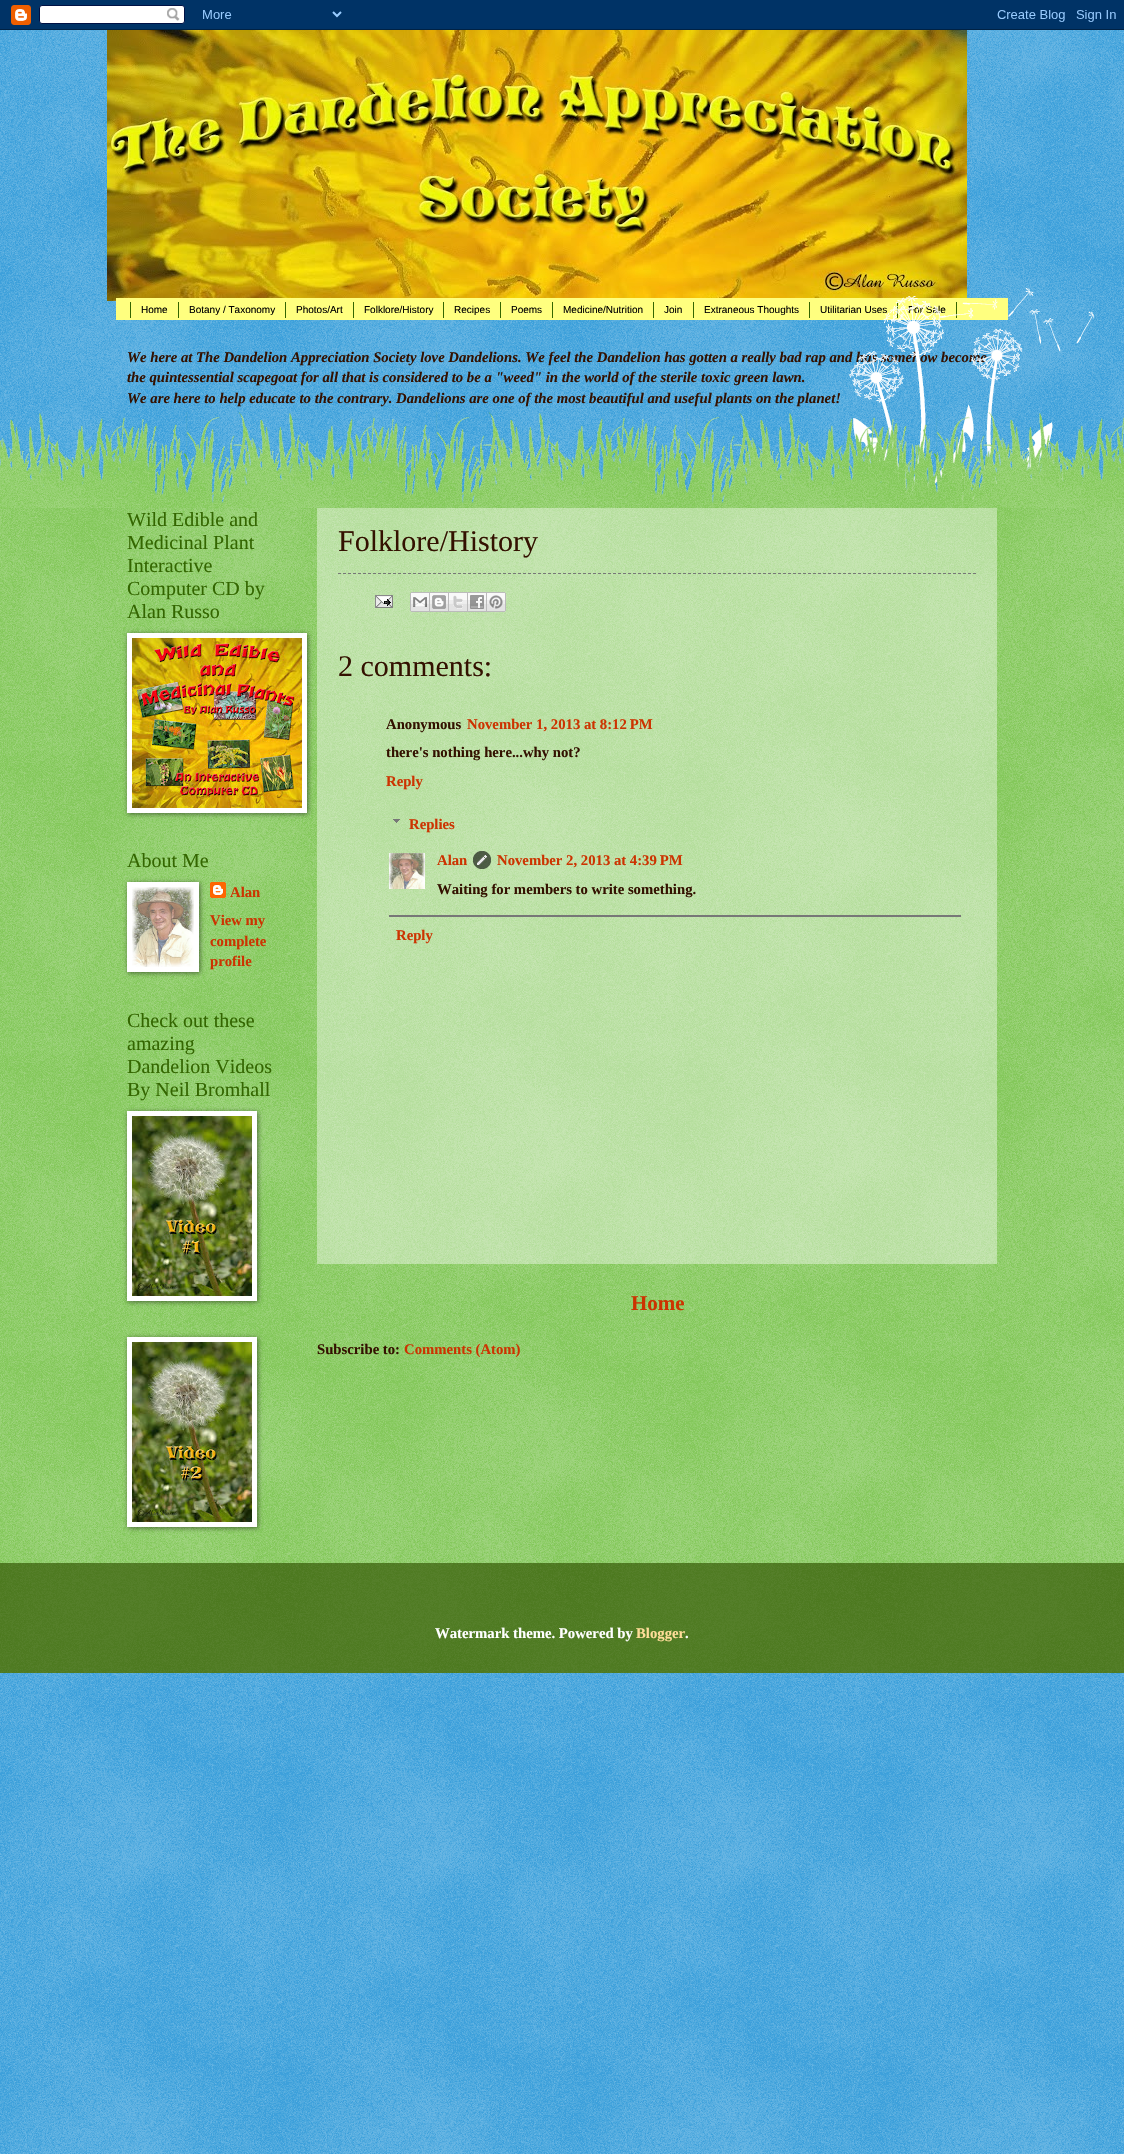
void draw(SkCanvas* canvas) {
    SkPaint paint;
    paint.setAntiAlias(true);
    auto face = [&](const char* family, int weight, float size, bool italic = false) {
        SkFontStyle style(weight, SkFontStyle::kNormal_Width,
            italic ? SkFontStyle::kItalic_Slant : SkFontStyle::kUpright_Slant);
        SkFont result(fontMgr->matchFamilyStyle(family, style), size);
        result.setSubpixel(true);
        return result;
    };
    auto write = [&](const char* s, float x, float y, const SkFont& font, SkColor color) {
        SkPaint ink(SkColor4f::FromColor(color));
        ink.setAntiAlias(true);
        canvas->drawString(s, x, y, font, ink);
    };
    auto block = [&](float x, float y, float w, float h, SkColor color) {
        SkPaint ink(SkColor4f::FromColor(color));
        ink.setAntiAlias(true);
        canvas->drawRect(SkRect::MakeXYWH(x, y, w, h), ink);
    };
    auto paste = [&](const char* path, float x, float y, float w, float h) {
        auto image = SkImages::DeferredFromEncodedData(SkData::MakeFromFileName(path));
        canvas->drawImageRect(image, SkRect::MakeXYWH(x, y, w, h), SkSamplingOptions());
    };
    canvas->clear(SkColorSetRGB(13, 137, 210));
    paste("pic1.png", 0, 30, 1124, 2124);
    paste("pic2.png", 0, 0, 1124, 30);
    paste("pic3.png", 107, 30, 860, 271);
    block(116, 298, 892, 22, SkColorSetRGB(255, 255, 127));
    block(178, 302, 1, 16, SkColorSetRGB(51, 102, 0));
    block(130, 302, 1, 16, SkColorSetRGB(51, 102, 0));
    auto kFont1 = face("Liberation Sans", 400, 10);
    write("Home", 141, 313, kFont1, SK_ColorBLACK);
    block(285, 302, 1, 16, SkColorSetRGB(51, 102, 0));
    write("Botany / Taxonomy", 189, 313, kFont1, SK_ColorBLACK);
    block(353, 302, 1, 16, SkColorSetRGB(51, 102, 0));
    write("Photos/Art", 296, 313, kFont1, SK_ColorBLACK);
    block(443, 302, 1, 16, SkColorSetRGB(51, 102, 0));
    write("Folklore/History", 364, 313, kFont1, SK_ColorBLACK);
    block(500, 302, 1, 16, SkColorSetRGB(51, 102, 0));
    write("Recipes", 454, 313, kFont1, SK_ColorBLACK);
    block(552, 302, 1, 16, SkColorSetRGB(51, 102, 0));
    write("Poems", 511, 313, kFont1, SK_ColorBLACK);
    block(653, 302, 1, 16, SkColorSetRGB(51, 102, 0));
    write("Medicine/Nutrition", 563, 313, kFont1, SK_ColorBLACK);
    block(693, 302, 1, 16, SkColorSetRGB(51, 102, 0));
    write("Join", 664, 313, kFont1, SK_ColorBLACK);
    block(809, 302, 1, 16, SkColorSetRGB(51, 102, 0));
    write("Extraneous Thoughts", 704, 313, kFont1, SK_ColorBLACK);
    block(897, 302, 1, 16, SkColorSetRGB(51, 102, 0));
    write("Utilitarian Uses", 820, 313, kFont1, SK_ColorBLACK);
    block(956, 302, 1, 16, SkColorSetRGB(51, 102, 0));
    write("For Sale", 908, 313, kFont1, SK_ColorBLACK);
    auto kFont2 = face("Liberation Serif", 700, 14.72f, true);
    write("We here at The Dandelion Appreciation Society love Dandelions. We feel the Dandelion has gotten a really bad rap and has somehow become", 127, 362, kFont2, SkColorSetRGB(51, 17, 0));
    write("the quintessential scapegoat for all that is considered to be a \"weed\" in the world of the sterile toxic green lawn.", 127, 382, kFont2, SkColorSetRGB(51, 17, 0));
    write("We are here to help educate to the contrary. Dandelions are one of the most beautiful and useful plants on the planet!", 127, 403, kFont2, SkColorSetRGB(51, 17, 0));
    block(0, 508, 1124, 1055, SkColorSetRGB(102, 187, 51));
    paste("pic4.png", 0, 508, 1124, 1055);
    paste("pic5.png", 844, 288, 250, 215);
    paste("pic6.png", 0, 412, 1124, 96);
    auto kFont3 = face("Liberation Serif", 400, 20);
    write("Wild Edible and", 127, 526, kFont3, SkColorSetRGB(51, 102, 0));
    write("Medicinal Plant", 127, 549, kFont3, SkColorSetRGB(51, 102, 0));
    write("Interactive", 127, 572, kFont3, SkColorSetRGB(51, 102, 0));
    write("Computer CD by", 127, 595, kFont3, SkColorSetRGB(51, 102, 0));
    write("Alan Russo", 127, 618, kFont3, SkColorSetRGB(51, 102, 0));
    paint.setColor(SkColorSetARGB(128, 0, 0, 0));
    paint.setMaskFilter(SkMaskFilter::MakeBlur(kNormal_SkBlurStyle, 2.5f));
    canvas->drawRect(SkRect::MakeXYWH(128, 634, 180, 180), paint);
    paint.setMaskFilter(nullptr);
    block(127, 633, 180, 180, SK_ColorWHITE);
    paste("pic7.png", 132, 638, 170, 170);
    write("About Me", 127, 867, kFont3, SkColorSetRGB(51, 102, 0));
    paint.setMaskFilter(SkMaskFilter::MakeBlur(kNormal_SkBlurStyle, 2.5f));
    canvas->drawRect(SkRect::MakeXYWH(128, 883, 72, 90), paint);
    paint.setMaskFilter(nullptr);
    block(127, 882, 72, 90, SK_ColorWHITE);
    paste("pic8.png", 132, 887, 62, 80);
    paste("pic9.png", 210, 882, 16, 16);
    auto kFont4 = face("Liberation Serif", 700, 14.72f);
    write("Alan", 230, 897, kFont4, SkColorSetRGB(204, 51, 0));
    write("View my", 210, 925, kFont4, SkColorSetRGB(204, 51, 0));
    write("complete", 210, 946, kFont4, SkColorSetRGB(204, 51, 0));
    write("profile", 210, 966, kFont4, SkColorSetRGB(204, 51, 0));
    write("Check out these", 127, 1027, kFont3, SkColorSetRGB(51, 102, 0));
    write("amazing", 127, 1050, kFont3, SkColorSetRGB(51, 102, 0));
    write("Dandelion Videos", 127, 1073, kFont3, SkColorSetRGB(51, 102, 0));
    write("By Neil Bromhall", 127, 1096, kFont3, SkColorSetRGB(51, 102, 0));
    paint.setMaskFilter(SkMaskFilter::MakeBlur(kNormal_SkBlurStyle, 2.5f));
    canvas->drawRect(SkRect::MakeXYWH(128, 1112, 130, 190), paint);
    paint.setMaskFilter(nullptr);
    block(127, 1111, 130, 190, SK_ColorWHITE);
    paste("pic10.png", 132, 1116, 120, 180);
    paint.setMaskFilter(SkMaskFilter::MakeBlur(kNormal_SkBlurStyle, 2.5f));
    canvas->drawRect(SkRect::MakeXYWH(128, 1338, 130, 190), paint);
    paint.setMaskFilter(nullptr);
    block(127, 1337, 130, 190, SK_ColorWHITE);
    paste("pic11.png", 132, 1342, 120, 180);
    block(317, 508, 680, 756, SkColorSetARGB(102, 255, 255, 255));
    auto kFont5 = face("Liberation Serif", 400, 30);
    write("Folklore/History", 338, 551, kFont5, SkColorSetRGB(51, 17, 0));
    paint.setStyle(SkPaint::kStroke_Style);
    paint.setStrokeWidth(1);
    paint.setColor(SkColorSetRGB(119, 119, 119));
    paint.setPathEffect(SkDashPathEffect::Make({{3, 2}}, 0));
    canvas->drawPath(SkPathBuilder().moveTo(338, 573.5f).lineTo(976, 573.5f).detach(), paint);
    paint.setPathEffect(nullptr);
    paste("pic12.png", 375, 595, 18, 13);
    paste("pic13.png", 410, 592, 20, 20);
    paste("pic14.png", 430, 592, 19, 20);
    paste("pic15.png", 449, 592, 19, 20);
    paste("pic16.png", 468, 592, 19, 20);
    paste("pic17.png", 487, 592, 19, 20);
    write("2 comments:", 338, 676, kFont5, SkColorSetRGB(51, 17, 0));
    write("Anonymous", 386, 729, kFont4, SkColorSetRGB(51, 17, 0));
    write("November 1, 2013 at 8:12 PM", 467, 729, kFont4, SkColorSetRGB(204, 51, 0));
    write("there's nothing here...why not?", 386, 757, kFont4, SkColorSetRGB(51, 17, 0));
    write("Reply", 386, 786, kFont4, SkColorSetRGB(204, 51, 0));
    paste("pic18.png", 393, 819, 7, 4);
    write("Replies", 409, 829, kFont4, SkColorSetRGB(204, 51, 0));
    paste("pic19.png", 389, 853, 36, 36);
    write("Alan", 437, 865, kFont4, SkColorSetRGB(204, 51, 0));
    paste("pic20.png", 473, 851, 18, 18);
    write("November 2, 2013 at 4:39 PM", 497, 865, kFont4, SkColorSetRGB(204, 51, 0));
    write("Waiting for members to write something.", 437, 894, kFont4, SkColorSetRGB(51, 17, 0));
    block(389, 915, 572, 2, SkColorSetRGB(119, 119, 119));
    write("Reply", 396, 940, kFont4, SkColorSetRGB(204, 51, 0));
    auto kFont6 = face("Liberation Serif", 700, 21);
    write("Home", 631, 1310, kFont6, SkColorSetRGB(204, 51, 0));
    write("Subscribe to:", 317, 1354, kFont4, SkColorSetRGB(51, 17, 0));
    write("Comments (Atom)", 404, 1354, kFont4, SkColorSetRGB(204, 51, 0));
    block(0, 1563, 1124, 110, SkColorSetRGB(51, 102, 0));
    paste("pic21.png", 0, 1563, 1124, 110);
    write("Watermark theme. Powered by", 435, 1638, kFont4, SK_ColorWHITE);
    write("Blogger", 636, 1638, kFont4, SkColorSetRGB(255, 221, 153));
    write(".", 685, 1638, kFont4, SK_ColorWHITE);
}
